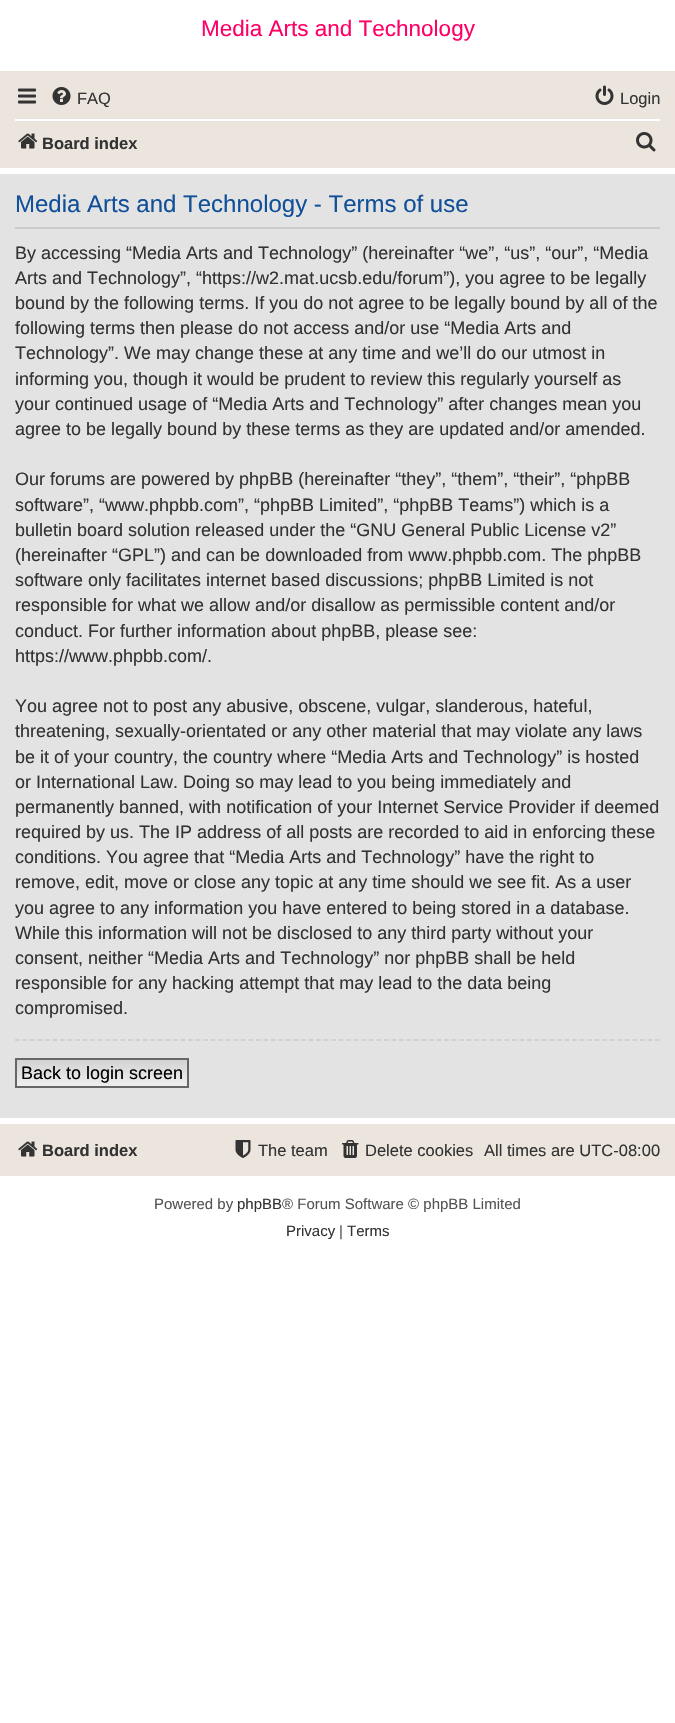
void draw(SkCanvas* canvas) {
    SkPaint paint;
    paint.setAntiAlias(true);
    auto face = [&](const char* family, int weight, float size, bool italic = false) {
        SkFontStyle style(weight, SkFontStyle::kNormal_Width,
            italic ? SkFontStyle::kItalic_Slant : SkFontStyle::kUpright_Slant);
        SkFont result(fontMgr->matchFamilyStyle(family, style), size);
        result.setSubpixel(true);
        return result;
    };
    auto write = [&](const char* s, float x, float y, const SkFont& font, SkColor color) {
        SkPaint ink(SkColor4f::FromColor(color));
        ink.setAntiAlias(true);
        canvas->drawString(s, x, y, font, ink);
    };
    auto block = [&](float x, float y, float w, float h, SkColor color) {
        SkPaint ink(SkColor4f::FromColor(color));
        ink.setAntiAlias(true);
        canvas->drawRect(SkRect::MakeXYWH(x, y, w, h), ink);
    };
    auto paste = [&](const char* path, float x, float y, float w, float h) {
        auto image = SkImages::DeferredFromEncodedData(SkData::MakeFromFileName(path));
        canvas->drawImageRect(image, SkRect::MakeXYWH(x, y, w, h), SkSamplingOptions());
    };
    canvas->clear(SK_ColorWHITE);
    auto kFont1 = face("Liberation Sans", 400, 22.5f);
    write("Media Arts and Technology", 201, 36, kFont1, SkColorSetRGB(255, 0, 102));
    block(0, 71, 675, 97, SkColorSetRGB(235, 229, 221));
    paste("pic1.png", 18, 88, 18, 16);
    paste("pic2.png", 52, 87, 19, 18);
    auto kFont2 = face("Liberation Sans", 400, 16.5f);
    write("FAQ", 77, 104, kFont2, SkColorSetRGB(51, 51, 51));
    paste("pic3.png", 595, 85, 19, 20);
    write("Login", 620, 104, kFont2, SkColorSetRGB(51, 51, 51));
    block(15, 119, 645, 2, SK_ColorWHITE);
    paste("pic4.png", 18, 133, 20, 16);
    auto kFont3 = face("Liberation Sans", 700, 16.5f);
    write("Board index", 42, 149, kFont3, SkColorSetRGB(51, 51, 51));
    paste("pic5.png", 636, 132, 20, 20);
    block(0, 174, 675, 944, SkColorSetRGB(227, 227, 227));
    block(15, 227, 645, 2, SkColorSetRGB(204, 204, 204));
    auto kFont4 = face("Liberation Sans", 400, 24);
    write("Media Arts and Technology - Terms of use", 15, 212, kFont4, SkColorSetRGB(17, 80, 152));
    auto kFont5 = face("Liberation Sans", 400, 18);
    write("By accessing “Media Arts and Technology” (hereinafter “we”, “us”, “our”, “Media", 15, 259, kFont5, SkColorSetRGB(51, 51, 51));
    write("Arts and Technology”, “https://w2.mat.ucsb.edu/forum”), you agree to be legally", 15, 284, kFont5, SkColorSetRGB(51, 51, 51));
    write("bound by the following terms. If you do not agree to be legally bound by all of the", 15, 309, kFont5, SkColorSetRGB(51, 51, 51));
    write("following terms then please do not access and/or use “Media Arts and", 15, 334, kFont5, SkColorSetRGB(51, 51, 51));
    write("Technology”. We may change these at any time and we’ll do our utmost in", 15, 359, kFont5, SkColorSetRGB(51, 51, 51));
    write("informing you, though it would be prudent to review this regularly yourself as", 15, 385, kFont5, SkColorSetRGB(51, 51, 51));
    write("your continued usage of “Media Arts and Technology” after changes mean you", 15, 410, kFont5, SkColorSetRGB(51, 51, 51));
    write("agree to be legally bound by these terms as they are updated and/or amended.", 15, 435, kFont5, SkColorSetRGB(51, 51, 51));
    write("Our forums are powered by phpBB (hereinafter “they”, “them”, “their”, “phpBB", 15, 485, kFont5, SkColorSetRGB(51, 51, 51));
    write("software”, “www.phpbb.com”, “phpBB Limited”, “phpBB Teams”) which is a", 15, 511, kFont5, SkColorSetRGB(51, 51, 51));
    write("bulletin board solution released under the “GNU General Public License v2”", 15, 536, kFont5, SkColorSetRGB(51, 51, 51));
    write("(hereinafter “GPL”) and can be downloaded from www.phpbb.com. The phpBB", 15, 561, kFont5, SkColorSetRGB(51, 51, 51));
    write("software only facilitates internet based discussions; phpBB Limited is not", 15, 586, kFont5, SkColorSetRGB(51, 51, 51));
    write("responsible for what we allow and/or disallow as permissible content and/or", 15, 611, kFont5, SkColorSetRGB(51, 51, 51));
    write("conduct. For further information about phpBB, please see:", 15, 637, kFont5, SkColorSetRGB(51, 51, 51));
    write("https://www.phpbb.com/.", 15, 662, kFont5, SkColorSetRGB(51, 51, 51));
    write("You agree not to post any abusive, obscene, vulgar, slanderous, hateful,", 15, 712, kFont5, SkColorSetRGB(51, 51, 51));
    write("threatening, sexually-orientated or any other material that may violate any laws", 15, 737, kFont5, SkColorSetRGB(51, 51, 51));
    write("be it of your country, the country where “Media Arts and Technology” is hosted", 15, 763, kFont5, SkColorSetRGB(51, 51, 51));
    write("or International Law. Doing so may lead to you being immediately and", 15, 788, kFont5, SkColorSetRGB(51, 51, 51));
    write("permanently banned, with notification of your Internet Service Provider if deemed", 15, 813, kFont5, SkColorSetRGB(51, 51, 51));
    write("required by us. The IP address of all posts are recorded to aid in enforcing these", 15, 838, kFont5, SkColorSetRGB(51, 51, 51));
    write("conditions. You agree that “Media Arts and Technology” have the right to", 15, 863, kFont5, SkColorSetRGB(51, 51, 51));
    write("remove, edit, move or close any topic at any time should we see fit. As a user", 15, 888, kFont5, SkColorSetRGB(51, 51, 51));
    write("you agree to any information you have entered to being stored in a database.", 15, 914, kFont5, SkColorSetRGB(51, 51, 51));
    write("While this information will not be disclosed to any third party without your", 15, 939, kFont5, SkColorSetRGB(51, 51, 51));
    write("consent, neither “Media Arts and Technology” nor phpBB shall be held", 15, 964, kFont5, SkColorSetRGB(51, 51, 51));
    write("responsible for any hacking attempt that may lead to the data being", 15, 989, kFont5, SkColorSetRGB(51, 51, 51));
    write("compromised.", 15, 1014, kFont5, SkColorSetRGB(51, 51, 51));
    paint.setStyle(SkPaint::kStroke_Style);
    paint.setStrokeWidth(1.5f);
    paint.setColor(SkColorSetRGB(204, 204, 204));
    paint.setPathEffect(SkDashPathEffect::Make({{4.5f, 3.03f}}, 0));
    canvas->drawPath(SkPathBuilder().moveTo(15, 1040).lineTo(660, 1040).detach(), paint);
    paint.setPathEffect(nullptr);
    paint.setStyle(SkPaint::kFill_Style);
    {
        const SkColor colors[] = {SkColorSetRGB(210, 210, 210), SkColorSetRGB(239, 239, 239)};
        const float stops[] = {0, 1};
        const SkPoint ends[] = {{102, 1059}, {102, 1086}};
        paint.setShader(SkGradientShader::MakeLinear(ends, colors, stops, 2, SkTileMode::kClamp));
        paint.setAlpha(255);
    }
    canvas->drawRect(SkRect::MakeXYWH(17, 1060, 170, 26), paint);
    paint.setStyle(SkPaint::kStroke_Style);
    paint.setStrokeWidth(2);
    paint.setShader(nullptr);
    paint.setColor(SkColorSetRGB(102, 102, 102));
    canvas->drawRect(SkRect::MakeXYWH(16, 1059, 172, 28), paint);
    write("Back to login screen", 21, 1079, kFont5, SK_ColorBLACK);
    block(0, 1124, 675, 52, SkColorSetRGB(235, 229, 221));
    paste("pic4.png", 18, 1141, 20, 16);
    write("Board index", 42, 1156, kFont3, SkColorSetRGB(51, 51, 51));
    paste("pic6.png", 235, 1140, 16, 18);
    write("The team", 258, 1156, kFont2, SkColorSetRGB(51, 51, 51));
    paste("pic7.png", 342, 1140, 17, 18);
    write("Delete cookies", 365, 1156, kFont2, SkColorSetRGB(51, 51, 51));
    write("All times are UTC-08:00", 484, 1156, kFont2, SkColorSetRGB(51, 51, 51));
    auto kFont6 = face("Liberation Sans", 400, 15);
    write("Powered by", 154, 1209, kFont6, SkColorSetRGB(85, 85, 85));
    write("phpBB", 237, 1209, kFont6, SkColorSetRGB(51, 51, 51));
    write("® Forum Software © phpBB Limited", 282, 1209, kFont6, SkColorSetRGB(85, 85, 85));
    write("Privacy", 286, 1236, kFont6, SkColorSetRGB(51, 51, 51));
    write("|", 339, 1236, kFont6, SkColorSetRGB(85, 85, 85));
    write("Terms", 347, 1236, kFont6, SkColorSetRGB(51, 51, 51));
}
